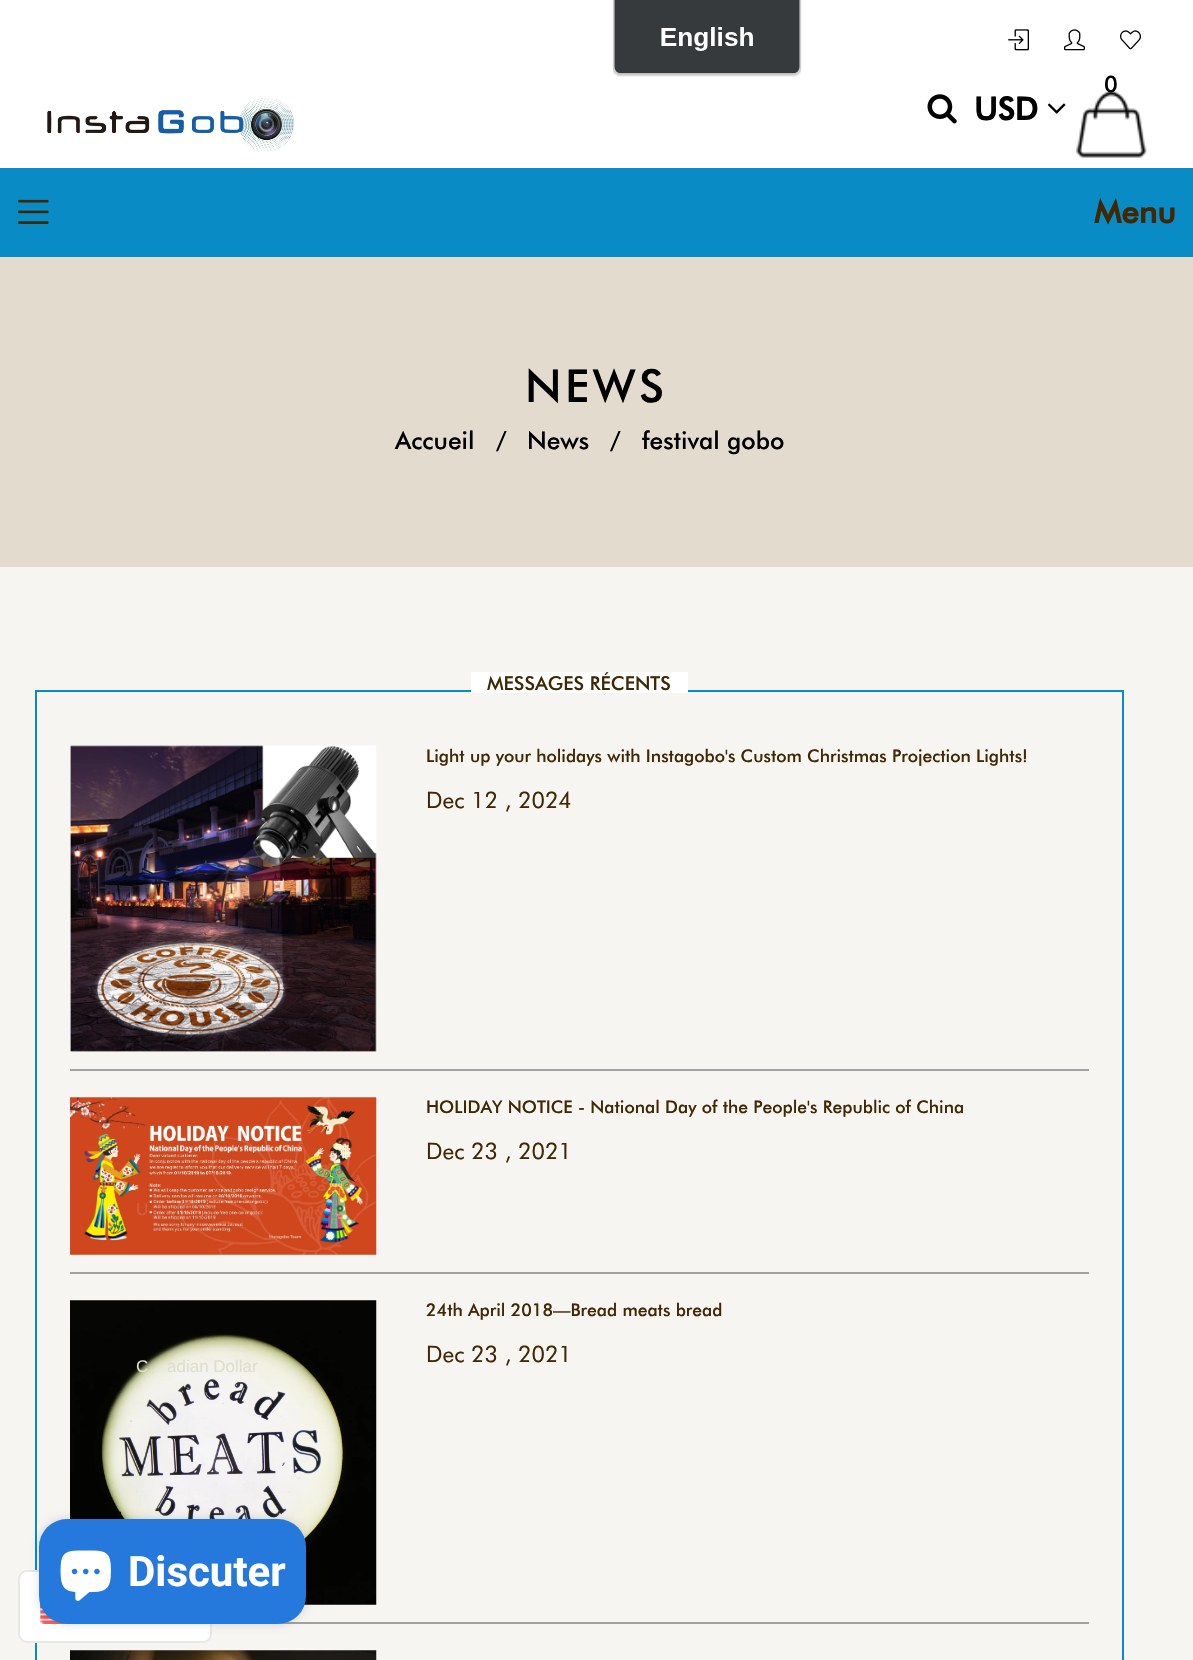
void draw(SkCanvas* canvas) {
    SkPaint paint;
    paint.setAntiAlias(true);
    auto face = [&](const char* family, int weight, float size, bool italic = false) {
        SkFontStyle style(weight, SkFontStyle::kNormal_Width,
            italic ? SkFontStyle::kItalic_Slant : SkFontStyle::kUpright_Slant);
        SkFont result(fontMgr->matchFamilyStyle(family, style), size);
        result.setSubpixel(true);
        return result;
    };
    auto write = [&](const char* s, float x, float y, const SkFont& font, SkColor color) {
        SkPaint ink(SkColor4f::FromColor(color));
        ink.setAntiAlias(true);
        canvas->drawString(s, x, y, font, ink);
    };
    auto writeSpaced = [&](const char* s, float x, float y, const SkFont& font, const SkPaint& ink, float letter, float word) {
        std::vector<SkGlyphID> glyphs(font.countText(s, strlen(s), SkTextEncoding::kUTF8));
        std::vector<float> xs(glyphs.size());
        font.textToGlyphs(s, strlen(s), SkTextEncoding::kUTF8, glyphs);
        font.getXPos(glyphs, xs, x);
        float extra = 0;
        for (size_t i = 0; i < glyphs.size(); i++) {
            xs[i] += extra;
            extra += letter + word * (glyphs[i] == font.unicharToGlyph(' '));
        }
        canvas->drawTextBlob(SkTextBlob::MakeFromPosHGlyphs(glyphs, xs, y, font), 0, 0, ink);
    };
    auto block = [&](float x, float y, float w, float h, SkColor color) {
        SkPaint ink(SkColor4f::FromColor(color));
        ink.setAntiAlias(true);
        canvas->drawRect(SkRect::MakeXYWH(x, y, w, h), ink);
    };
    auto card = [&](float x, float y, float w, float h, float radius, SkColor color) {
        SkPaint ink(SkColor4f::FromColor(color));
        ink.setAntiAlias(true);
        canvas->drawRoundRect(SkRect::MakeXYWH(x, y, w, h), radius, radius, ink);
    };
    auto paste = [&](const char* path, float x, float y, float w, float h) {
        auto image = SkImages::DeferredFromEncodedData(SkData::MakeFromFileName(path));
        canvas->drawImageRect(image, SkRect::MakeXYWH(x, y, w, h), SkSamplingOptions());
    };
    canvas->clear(SkColorSetRGB(246, 245, 241));
    block(0, 0, 1193, 168, SK_ColorWHITE);
    paste("pic1.png", 612, 0, 190, 77);
    paste("pic2.png", 1008, 29, 21, 22);
    paste("pic3.png", 1064, 29, 21, 22);
    paste("pic4.png", 1120, 30, 21, 20);
    paste("pic5.png", 47, 97, 247, 55);
    paste("pic6.png", 1076, 90, 71, 68);
    auto kFont1 = face("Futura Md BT", 500, 22.75f);
    write("0", 1104, 92, kFont1, SK_ColorBLACK);
    paste("pic7.png", 927, 94, 30, 30);
    auto kFont2 = face("Futura Md BT", 700, 31.5f);
    write("USD", 974, 120, kFont2, SK_ColorBLACK);
    paste("pic8.png", 1047, 103, 19, 11);
    block(0, 168, 1193, 89, SkColorSetRGB(9, 139, 198));
    paste("pic9.png", 17, 199, 32, 25);
    write("Menu", 1094, 223, kFont2, SkColorSetRGB(63, 40, 3));
    block(0, 257, 1193, 310, SkColorSetRGB(227, 219, 206));
    auto kFont3 = face("Futura Md BT", 500, 45.5f);
    paint.setColor(SK_ColorBLACK);
    writeSpaced("NEWS", 525, 402, kFont3, paint, 3.5f, 0);
    auto kFont4 = face("Futura Md BT", 500, 24.5f);
    write("Accueil", 395, 449, kFont4, SK_ColorBLACK);
    write("/", 496, 449, kFont4, SK_ColorBLACK);
    write("News", 527, 449, kFont4, SK_ColorBLACK);
    write("/", 610, 449, kFont4, SK_ColorBLACK);
    write("festival gobo", 642, 449, kFont4, SK_ColorBLACK);
    paint.setStyle(SkPaint::kStroke_Style);
    paint.setStrokeWidth(2);
    paint.setColor(SkColorSetRGB(9, 139, 198));
    canvas->drawRect(SkRect::MakeXYWH(36, 691, 1087, 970), paint);
    paste("pic13.png", 70, 1300, 307, 305);
    paint.setStyle(SkPaint::kFill_Style);
    paint.setColor(SK_ColorWHITE);
    canvas->drawRoundRect(SkRect::MakeXYWH(19, 1571, 192, 71), 8, 8, paint);
    paint.setStyle(SkPaint::kStroke_Style);
    paint.setColor(SkColorSetRGB(232, 232, 232));
    canvas->drawRoundRect(SkRect::MakeXYWH(19, 1571, 192, 71), 8, 8, paint);
    paste("pic12.png", 70, 1097, 307, 158);
    auto kFont5 = face("Liberation Sans", 400, 17);
    write("U", 136, 1215, kFont5, SkColorSetRGB(210, 96, 61));
    write("C", 136, 1372, kFont5, SkColorSetRGB(221, 222, 208));
    write("adian Dollar", 167, 1372, kFont5, SkColorSetRGB(221, 222, 208));
    paste("pic10.png", 40, 1603, 27, 21);
    block(471, 672, 217, 21, SK_ColorWHITE);
    auto kFont6 = face("Futura Md BT", 500, 19.25f);
    write("MESSAGES RÉCENTS", 487, 690, kFont6, SkColorSetRGB(63, 40, 3));
    block(70, 1069, 1019, 2, SkColorSetRGB(161, 161, 161));
    paste("pic11.png", 70, 745, 307, 307);
    auto kFont7 = face("Futura Md BT", 500, 17.5f);
    write("Light up your holidays with Instagobo's Custom Christmas Projection Lights!", 426, 762, kFont7, SkColorSetRGB(63, 40, 3));
    auto kFont8 = face("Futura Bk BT", 400, 22.75f);
    write("Dec 12 , 2024", 426, 808, kFont8, SkColorSetRGB(63, 40, 3));
    block(70, 1272, 1019, 2, SkColorSetRGB(161, 161, 161));
    write("HOLIDAY NOTICE - National Day of the People's Republic of China", 426, 1113, kFont7, SkColorSetRGB(63, 40, 3));
    write("Dec 23 , 2021", 426, 1159, kFont8, SkColorSetRGB(63, 40, 3));
    block(278, 1622, 811, 2, SkColorSetRGB(161, 161, 161));
    write("24th April 2018—Bread meats bread", 426, 1316, kFont7, SkColorSetRGB(63, 40, 3));
    write("Dec 23 , 2021", 426, 1362, kFont8, SkColorSetRGB(63, 40, 3));
    paste("pic14.png", 70, 1650, 307, 10);
    paint.setStyle(SkPaint::kFill_Style);
    paint.setColor(SkColorSetARGB(38, 0, 0, 0));
    paint.setMaskFilter(SkMaskFilter::MakeBlur(kNormal_SkBlurStyle, 4.5f));
    canvas->drawRoundRect(SkRect::MakeXYWH(39, 1519, 267, 105), 28, 28, paint);
    paint.setMaskFilter(nullptr);
    card(39, 1519, 267, 105, 28, SkColorSetRGB(38, 121, 220));
    paste("pic15.png", 60, 1550, 51, 51);
    auto kFont9 = face("Roboto", 700, 42);
    write("Discuter", 128, 1586, kFont9, SK_ColorWHITE);
}
